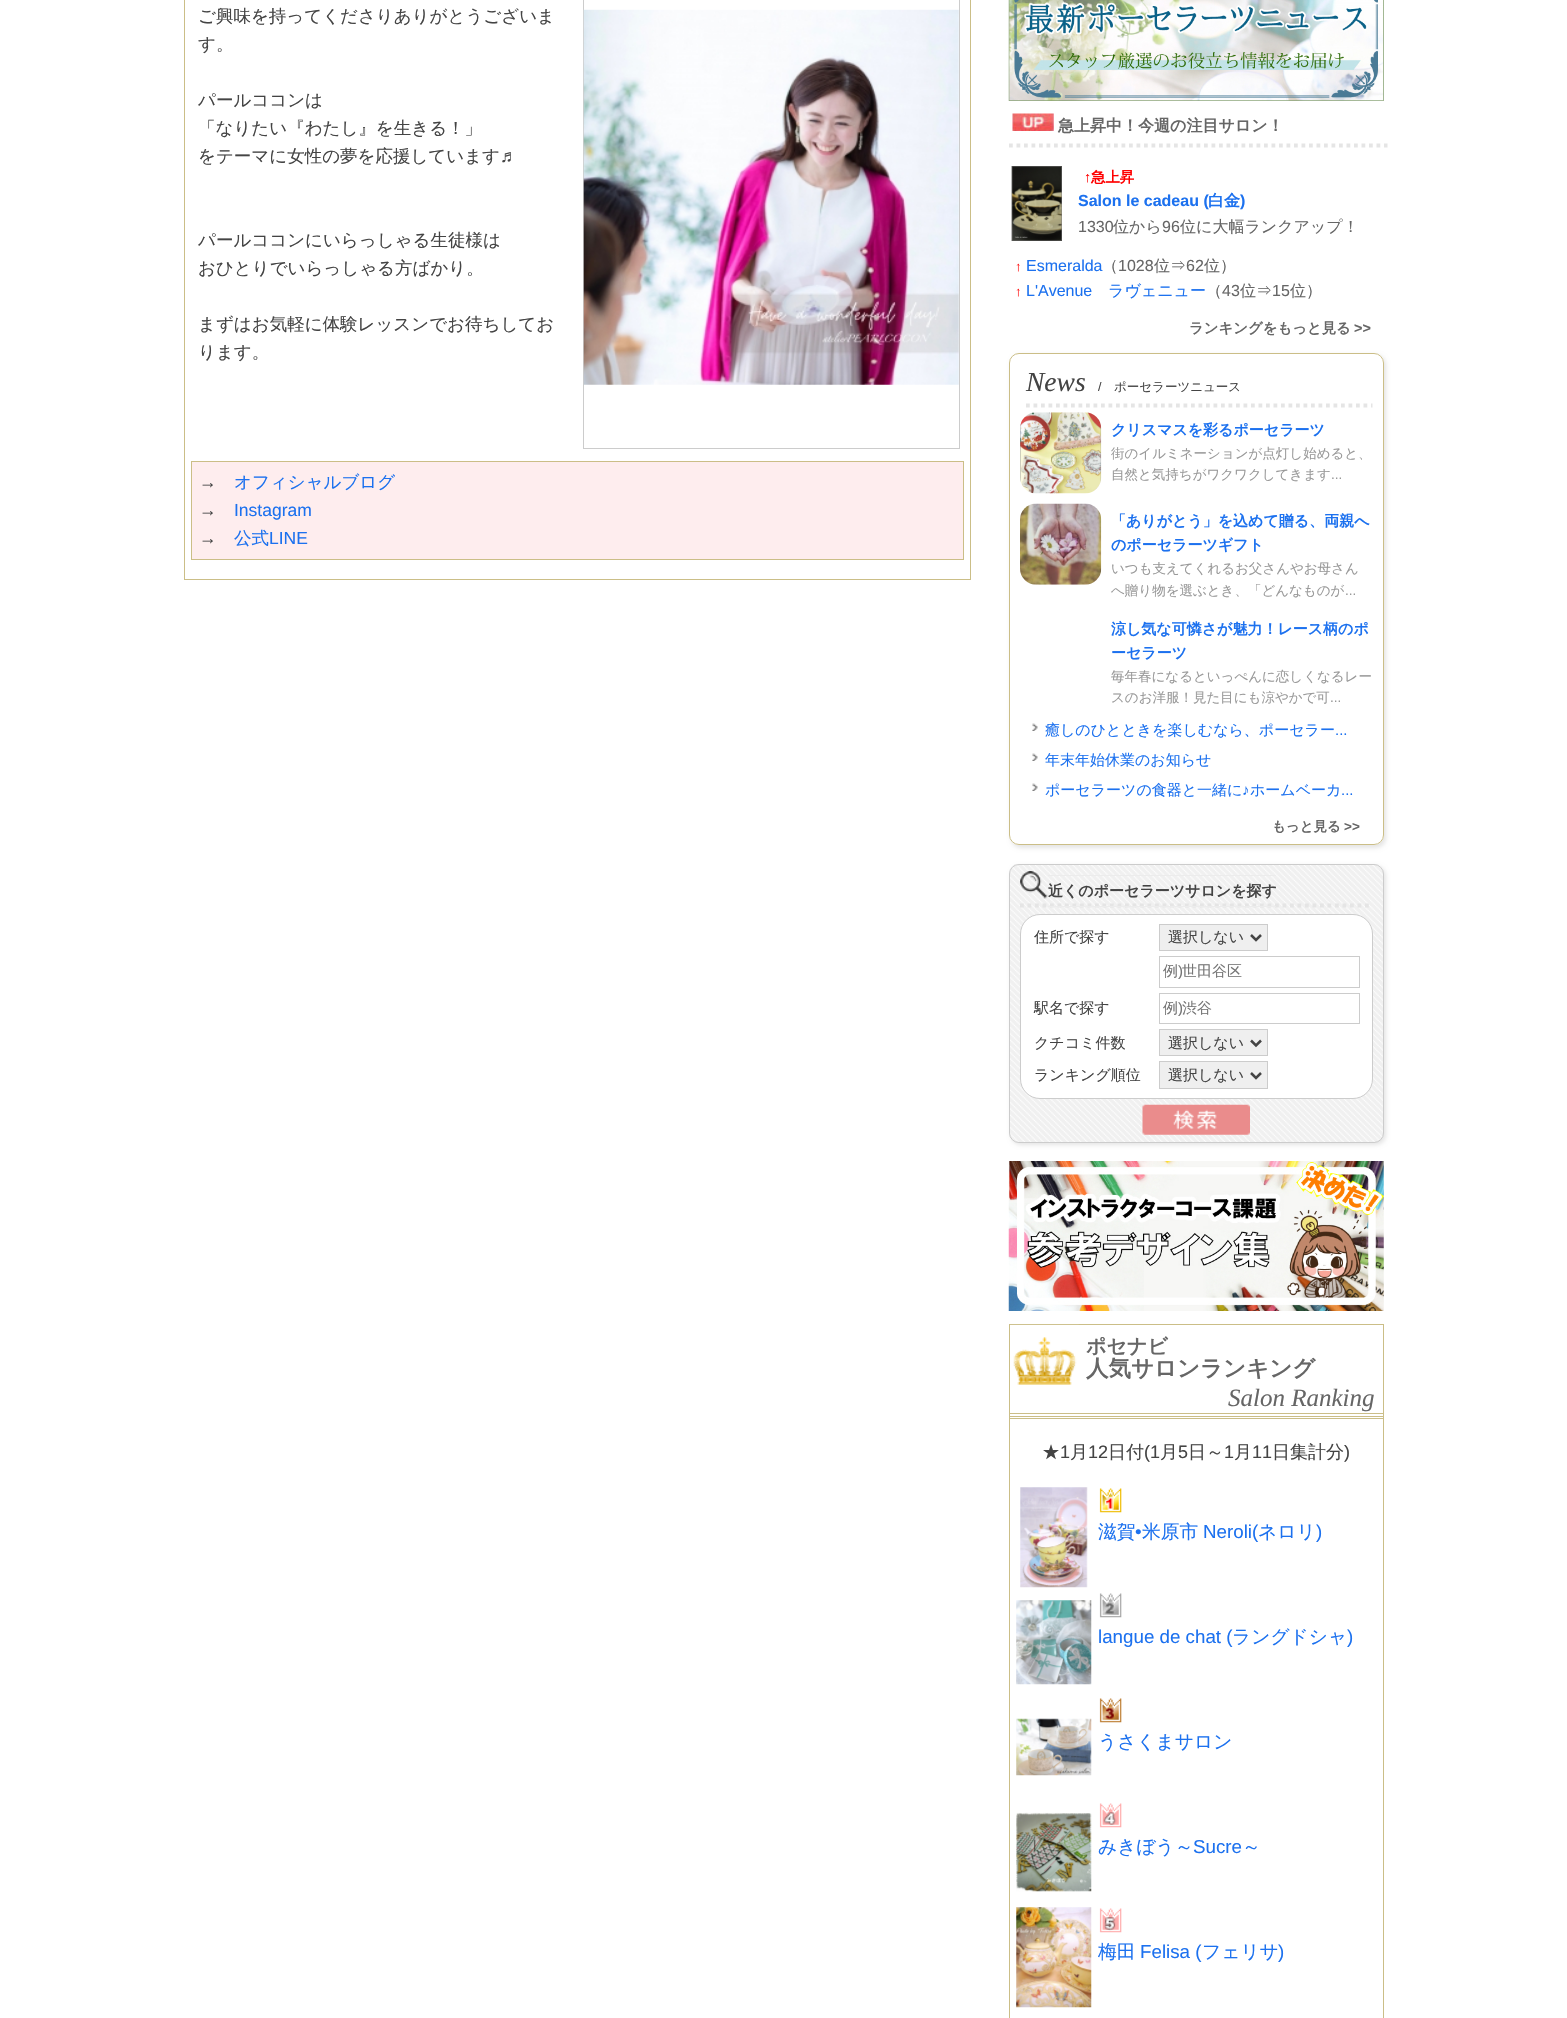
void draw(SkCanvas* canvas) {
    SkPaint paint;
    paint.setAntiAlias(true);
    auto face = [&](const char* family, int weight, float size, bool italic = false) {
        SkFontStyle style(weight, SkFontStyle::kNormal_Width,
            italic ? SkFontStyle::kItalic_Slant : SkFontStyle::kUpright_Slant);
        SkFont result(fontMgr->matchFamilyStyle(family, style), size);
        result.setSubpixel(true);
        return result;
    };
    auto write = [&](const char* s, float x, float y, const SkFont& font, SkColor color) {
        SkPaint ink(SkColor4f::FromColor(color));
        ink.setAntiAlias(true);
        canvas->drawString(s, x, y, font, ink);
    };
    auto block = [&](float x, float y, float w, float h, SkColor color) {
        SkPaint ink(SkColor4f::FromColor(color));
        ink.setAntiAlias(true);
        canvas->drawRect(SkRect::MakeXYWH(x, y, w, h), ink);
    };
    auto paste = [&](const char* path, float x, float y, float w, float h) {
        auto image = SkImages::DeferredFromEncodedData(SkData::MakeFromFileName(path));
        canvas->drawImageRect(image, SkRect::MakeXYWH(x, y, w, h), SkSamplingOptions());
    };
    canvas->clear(SK_ColorWHITE);
    paint.setStyle(SkPaint::kStroke_Style);
    paint.setStrokeWidth(1);
    paint.setColor(SkColorSetRGB(203, 190, 135));
    canvas->drawRect(SkRect::MakeXYWH(184.5f, -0.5f, 786, 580), paint);
    auto kFont1 = face("WenQuanYi Zen Hei", 500, 17.5f);
    write("ご興味を持ってくださりありがとうございま", 198, 22, kFont1, SkColorSetRGB(68, 68, 68));
    write("す。", 198, 50, kFont1, SkColorSetRGB(68, 68, 68));
    write("パールココンは", 198, 106, kFont1, SkColorSetRGB(68, 68, 68));
    write("「なりたい『わたし』を生きる！」", 198, 134, kFont1, SkColorSetRGB(68, 68, 68));
    write("をテーマに女性の夢を応援しています", 198, 162, kFont1, SkColorSetRGB(68, 68, 68));
    auto kFont2 = face("Liberation Sans", 400, 17.5f);
    write("♬", 500, 162, kFont2, SkColorSetRGB(68, 68, 68));
    write("パールココンにいらっしゃる生徒様は", 198, 246, kFont1, SkColorSetRGB(68, 68, 68));
    write("おひとりでいらっしゃる方ばかり。", 198, 274, kFont1, SkColorSetRGB(68, 68, 68));
    write("まずはお気軽に体験レッスンでお待ちしてお", 198, 330, kFont1, SkColorSetRGB(68, 68, 68));
    write("ります。", 198, 358, kFont1, SkColorSetRGB(68, 68, 68));
    paint.setColor(SkColorSetRGB(204, 204, 204));
    canvas->drawRect(SkRect::MakeXYWH(583.5f, -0.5f, 376, 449), paint);
    paste("pic1.png", 583, 9, 376, 376);
    paint.setStyle(SkPaint::kFill_Style);
    paint.setColor(SkColorSetRGB(254, 237, 238));
    canvas->drawRect(SkRect::MakeXYWH(191.5f, 461.5f, 772, 98), paint);
    paint.setStyle(SkPaint::kStroke_Style);
    paint.setColor(SkColorSetRGB(203, 190, 135));
    canvas->drawRect(SkRect::MakeXYWH(191.5f, 461.5f, 772, 98), paint);
    write("→", 199, 488, kFont2, SkColorSetRGB(68, 68, 68));
    write("オフィシャルブログ", 234, 488, kFont1, SkColorSetRGB(28, 113, 239));
    write("→", 199, 516, kFont2, SkColorSetRGB(68, 68, 68));
    write("Instagram", 234, 516, kFont2, SkColorSetRGB(28, 113, 239));
    write("→", 199, 544, kFont2, SkColorSetRGB(68, 68, 68));
    write("公式", 234, 544, kFont1, SkColorSetRGB(28, 113, 239));
    write("LINE", 269, 544, kFont2, SkColorSetRGB(28, 113, 239));
    paste("pic2.png", 1008, 0, 376, 101);
    paint.setStrokeWidth(3.8f);
    paint.setColor(SkColorSetRGB(229, 229, 229));
    paint.setPathEffect(SkDashPathEffect::Make({{3.75f, 3.75f}}, 0));
    canvas->drawPath(SkPathBuilder().moveTo(1009, 145.5f).lineTo(1387.5f, 145.5f).detach(), paint);
    paint.setPathEffect(nullptr);
    paste("pic3.png", 1012, 113, 42, 18);
    auto kFont3 = face("WenQuanYi Zen Hei", 700, 16);
    write("急上昇中！今週の注目サロン！", 1058, 131, kFont3, SkColorSetRGB(102, 102, 102));
    paste("pic4.png", 1011, 166, 51, 75);
    auto kFont4 = face("Liberation Sans", 700, 14.4f);
    write("↑", 1084, 182, kFont4, SkColorSetRGB(255, 0, 0));
    auto kFont5 = face("WenQuanYi Zen Hei", 700, 14.4f);
    write("急上昇", 1091, 182, kFont5, SkColorSetRGB(255, 0, 0));
    auto kFont6 = face("Liberation Sans", 700, 16);
    write("Salon le cadeau (", 1078, 206, kFont6, SkColorSetRGB(28, 113, 239));
    write("白金", 1208, 206, kFont3, SkColorSetRGB(28, 113, 239));
    write(")", 1240, 206, kFont6, SkColorSetRGB(28, 113, 239));
    auto kFont7 = face("Liberation Sans", 400, 16);
    write("1330", 1078, 232, kFont7, SkColorSetRGB(102, 102, 102));
    auto kFont8 = face("WenQuanYi Zen Hei", 500, 16);
    write("位から", 1113, 232, kFont8, SkColorSetRGB(102, 102, 102));
    write("96", 1162, 232, kFont7, SkColorSetRGB(102, 102, 102));
    write("位に大幅ランクアップ！", 1180, 232, kFont8, SkColorSetRGB(102, 102, 102));
    auto kFont9 = face("Liberation Sans", 400, 13);
    write("↑", 1015, 271, kFont9, SkColorSetRGB(255, 0, 0));
    write("Esmeralda", 1026, 271, kFont7, SkColorSetRGB(28, 113, 239));
    write("（", 1102, 271, kFont8, SkColorSetRGB(102, 102, 102));
    write("1028", 1118, 271, kFont7, SkColorSetRGB(102, 102, 102));
    write("位⇒", 1154, 271, kFont8, SkColorSetRGB(102, 102, 102));
    write("62", 1186, 271, kFont7, SkColorSetRGB(102, 102, 102));
    write("位）", 1204, 271, kFont8, SkColorSetRGB(102, 102, 102));
    write("↑", 1015, 296, kFont9, SkColorSetRGB(255, 0, 0));
    write("L'Avenue", 1026, 296, kFont7, SkColorSetRGB(28, 113, 239));
    write("ラヴェニュー", 1108, 296, kFont8, SkColorSetRGB(28, 113, 239));
    write("（", 1206, 296, kFont8, SkColorSetRGB(102, 102, 102));
    write("43", 1222, 296, kFont7, SkColorSetRGB(102, 102, 102));
    write("位⇒", 1240, 296, kFont8, SkColorSetRGB(102, 102, 102));
    write("15", 1272, 296, kFont7, SkColorSetRGB(102, 102, 102));
    write("位）", 1290, 296, kFont8, SkColorSetRGB(102, 102, 102));
    write("ランキングをもっと見る", 1189, 333, kFont5, SkColorSetRGB(102, 102, 102));
    write(">>", 1354, 333, kFont4, SkColorSetRGB(102, 102, 102));
    canvas->save();
    canvas->clipPath(SkPathBuilder(SkPathFillType::kEvenOdd).moveTo(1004, 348).lineTo(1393, 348).lineTo(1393, 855).lineTo(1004, 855).close().moveTo(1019, 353).lineTo(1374, 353).cubicTo(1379.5f, 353, 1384, 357.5f, 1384, 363).lineTo(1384, 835).cubicTo(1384, 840.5f, 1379.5f, 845, 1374, 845).lineTo(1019, 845).cubicTo(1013.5f, 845, 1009, 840.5f, 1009, 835).lineTo(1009, 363).cubicTo(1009, 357.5f, 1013.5f, 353, 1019, 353).close().detach(), true);
    paint.setStyle(SkPaint::kFill_Style);
    paint.setColor(SkColorSetARGB(26, 0, 0, 0));
    paint.setMaskFilter(SkMaskFilter::MakeBlur(kNormal_SkBlurStyle, 2));
    canvas->drawRoundRect(SkRect::MakeXYWH(1011, 355, 375, 493), 10, 10, paint);
    paint.setMaskFilter(nullptr);
    canvas->restore();
    paint.setStyle(SkPaint::kStroke_Style);
    paint.setStrokeWidth(1);
    paint.setColor(SkColorSetRGB(203, 190, 135));
    canvas->drawRoundRect(SkRect::MakeXYWH(1009.5f, 353.5f, 374, 491), 9.5f, 9.5f, paint);
    paint.setStrokeWidth(3.8f);
    paint.setColor(SkColorSetRGB(229, 229, 229));
    paint.setPathEffect(SkDashPathEffect::Make({{3.75f, 3.75f}}, 0));
    canvas->drawPath(SkPathBuilder().moveTo(1026, 405.5f).lineTo(1372.5f, 405.5f).detach(), paint);
    paint.setPathEffect(nullptr);
    auto kFont10 = face("Liberation Serif", 400, 27.5f, true);
    write("News", 1026, 391, kFont10, SkColorSetRGB(68, 68, 68));
    auto kFont11 = face("Liberation Sans", 400, 12.5f);
    write("/", 1098, 391, kFont11, SkColorSetRGB(68, 68, 68));
    auto kFont12 = face("WenQuanYi Zen Hei", 500, 12.5f);
    write("ポーセラーツニュース", 1114, 391, kFont12, SkColorSetRGB(68, 68, 68));
    paste("pic5.png", 1020, 412, 82, 82);
    auto kFont13 = face("WenQuanYi Zen Hei", 700, 15);
    write("クリスマスを彩るポーセラーツ", 1111, 435, kFont13, SkColorSetRGB(28, 113, 239));
    auto kFont14 = face("WenQuanYi Zen Hei", 500, 13.5f);
    write("街のイルミネーションが点灯し始めると、", 1111, 458, kFont14, SkColorSetRGB(153, 153, 153));
    write("自然と気持ちがワクワクしてきます", 1111, 479, kFont14, SkColorSetRGB(153, 153, 153));
    auto kFont15 = face("Liberation Sans", 400, 13.5f);
    write("...", 1331, 479, kFont15, SkColorSetRGB(153, 153, 153));
    paste("pic6.png", 1020, 503, 82, 82);
    write("「ありがとう」を込めて贈る、両親へ", 1111, 526, kFont13, SkColorSetRGB(28, 113, 239));
    write("のポーセラーツギフト", 1111, 550, kFont13, SkColorSetRGB(28, 113, 239));
    write("いつも支えてくれるお父さんやお母さん", 1111, 573, kFont14, SkColorSetRGB(153, 153, 153));
    write("へ贈り物を選ぶとき、「どんなものが", 1111, 595, kFont14, SkColorSetRGB(153, 153, 153));
    write("...", 1345, 595, kFont15, SkColorSetRGB(153, 153, 153));
    write("涼し気な可憐さが魅力！レース柄のポ", 1111, 634, kFont13, SkColorSetRGB(28, 113, 239));
    write("ーセラーツ", 1111, 658, kFont13, SkColorSetRGB(28, 113, 239));
    write("毎年春になるといっぺんに恋しくなるレー", 1111, 681, kFont14, SkColorSetRGB(153, 153, 153));
    write("スのお洋服！見た目にも涼やかで可", 1111, 702, kFont14, SkColorSetRGB(153, 153, 153));
    write("...", 1330, 702, kFont15, SkColorSetRGB(153, 153, 153));
    paste("pic7.png", 1032, 723, 6, 8);
    auto kFont16 = face("WenQuanYi Zen Hei", 500, 15);
    write("癒しのひとときを楽しむなら、ポーセラー", 1045, 735, kFont16, SkColorSetRGB(28, 113, 239));
    auto kFont17 = face("Liberation Sans", 400, 15);
    write("...", 1335, 735, kFont17, SkColorSetRGB(28, 113, 239));
    paste("pic7.png", 1032, 753, 6, 8);
    write("年末年始休業のお知らせ", 1045, 765, kFont16, SkColorSetRGB(28, 113, 239));
    paste("pic7.png", 1032, 783, 6, 8);
    write("ポーセラーツの食器と一緒に", 1045, 795, kFont16, SkColorSetRGB(28, 113, 239));
    write("♪", 1242, 795, kFont17, SkColorSetRGB(28, 113, 239));
    write("ホームベーカ", 1250, 795, kFont16, SkColorSetRGB(28, 113, 239));
    write("...", 1341, 795, kFont17, SkColorSetRGB(28, 113, 239));
    auto kFont18 = face("WenQuanYi Zen Hei", 700, 13.5f);
    write("もっと見る", 1272, 831, kFont18, SkColorSetRGB(102, 102, 102));
    auto kFont19 = face("Liberation Sans", 700, 13.5f);
    write(">>", 1344, 831, kFont19, SkColorSetRGB(102, 102, 102));
    paint.setStyle(SkPaint::kFill_Style);
    paint.setColor(SkColorSetARGB(26, 0, 0, 0));
    paint.setMaskFilter(SkMaskFilter::MakeBlur(kNormal_SkBlurStyle, 2));
    canvas->drawRoundRect(SkRect::MakeXYWH(1011, 866, 375, 279), 10, 10, paint);
    paint.setMaskFilter(nullptr);
    paste("pic8.png", 1009, 864, 375, 278);
    paint.setStyle(SkPaint::kStroke_Style);
    paint.setStrokeWidth(1);
    paint.setColor(SkColorSetRGB(204, 204, 204));
    canvas->drawRoundRect(SkRect::MakeXYWH(1009.5f, 864.5f, 374, 278), 9.5f, 9.5f, paint);
    paint.setStrokeWidth(3.8f);
    paint.setColor(SkColorSetRGB(229, 229, 229));
    paint.setPathEffect(SkDashPathEffect::Make({{3.75f, 3.75f}}, 0));
    canvas->drawPath(SkPathBuilder().moveTo(1020, 905.5f).lineTo(1372.5f, 905.5f).detach(), paint);
    paint.setPathEffect(nullptr);
    paste("pic9.png", 1020, 871, 28, 28);
    write("近くのポーセラーツサロンを探す", 1048, 896, kFont13, SkColorSetRGB(68, 68, 68));
    block(1048, 875, 228, 1, SkColorSetRGB(236, 236, 236));
    block(1048, 906, 228, 1, SkColorSetRGB(236, 236, 236));
    paint.setStyle(SkPaint::kFill_Style);
    paint.setColor(SK_ColorWHITE);
    canvas->drawRoundRect(SkRect::MakeXYWH(1020.5f, 914.5f, 352, 184), 19.5f, 19.5f, paint);
    paint.setStyle(SkPaint::kStroke_Style);
    paint.setStrokeWidth(1);
    paint.setColor(SkColorSetRGB(204, 204, 204));
    canvas->drawRoundRect(SkRect::MakeXYWH(1020.5f, 914.5f, 352, 184), 19.5f, 19.5f, paint);
    write("住所で探す", 1034, 942, kFont16, SkColorSetRGB(68, 68, 68));
    paint.setStyle(SkPaint::kFill_Style);
    paint.setColor(SkColorSetRGB(239, 239, 239));
    canvas->drawRect(SkRect::MakeXYWH(1159.5f, 924.5f, 108, 26), paint);
    paint.setStyle(SkPaint::kStroke_Style);
    paint.setColor(SkColorSetRGB(204, 204, 204));
    canvas->drawRect(SkRect::MakeXYWH(1159.5f, 924.5f, 108, 26), paint);
    paint.setStrokeWidth(2.5f);
    paint.setColor(SkColorSetRGB(68, 68, 68));
    canvas->drawPath(SkPathBuilder().moveTo(1251, 935).lineTo(1256, 940).lineTo(1261, 935).detach(), paint);
    write("選択しない", 1168, 942, kFont16, SkColorSetRGB(68, 68, 68));
    paint.setStrokeWidth(1);
    paint.setColor(SkColorSetRGB(204, 204, 204));
    canvas->drawRect(SkRect::MakeXYWH(1159.5f, 956.5f, 200, 31), paint);
    write("例", 1163, 976, kFont16, SkColorSetRGB(117, 117, 117));
    write(")", 1178, 976, kFont17, SkColorSetRGB(117, 117, 117));
    write("世田谷区", 1182, 976, kFont16, SkColorSetRGB(117, 117, 117));
    write("駅名で探す", 1034, 1013, kFont16, SkColorSetRGB(68, 68, 68));
    canvas->drawRect(SkRect::MakeXYWH(1159.5f, 993.5f, 200, 30), paint);
    write("例", 1163, 1013, kFont16, SkColorSetRGB(117, 117, 117));
    write(")", 1178, 1013, kFont17, SkColorSetRGB(117, 117, 117));
    write("渋谷", 1182, 1013, kFont16, SkColorSetRGB(117, 117, 117));
    write("クチコミ件数", 1034, 1048, kFont16, SkColorSetRGB(68, 68, 68));
    paint.setStyle(SkPaint::kFill_Style);
    paint.setColor(SkColorSetRGB(239, 239, 239));
    canvas->drawRect(SkRect::MakeXYWH(1159.5f, 1029.5f, 108, 26), paint);
    paint.setStyle(SkPaint::kStroke_Style);
    paint.setColor(SkColorSetRGB(204, 204, 204));
    canvas->drawRect(SkRect::MakeXYWH(1159.5f, 1029.5f, 108, 26), paint);
    paint.setStrokeWidth(2.5f);
    paint.setColor(SkColorSetRGB(68, 68, 68));
    canvas->drawPath(SkPathBuilder().moveTo(1251, 1040.5f).lineTo(1256, 1045.5f).lineTo(1261, 1040.5f).detach(), paint);
    write("選択しない", 1168, 1048, kFont16, SkColorSetRGB(68, 68, 68));
    write("ランキング順位", 1034, 1080, kFont16, SkColorSetRGB(68, 68, 68));
    paint.setStyle(SkPaint::kFill_Style);
    paint.setColor(SkColorSetRGB(239, 239, 239));
    canvas->drawRect(SkRect::MakeXYWH(1159.5f, 1061.5f, 108, 27), paint);
    paint.setStyle(SkPaint::kStroke_Style);
    paint.setStrokeWidth(1);
    paint.setColor(SkColorSetRGB(204, 204, 204));
    canvas->drawRect(SkRect::MakeXYWH(1159.5f, 1061.5f, 108, 27), paint);
    paint.setStrokeWidth(2.5f);
    paint.setColor(SkColorSetRGB(68, 68, 68));
    canvas->drawPath(SkPathBuilder().moveTo(1251, 1073).lineTo(1256, 1078).lineTo(1261, 1073).detach(), paint);
    write("選択しない", 1168, 1080, kFont16, SkColorSetRGB(68, 68, 68));
    paste("pic10.png", 1142, 1104, 108, 31);
    paste("pic11.png", 1008, 1161, 376, 150);
    block(1009, 1324, 375, 1, SkColorSetRGB(203, 190, 135));
    block(1383, 1324, 1, 94, SkColorSetRGB(203, 190, 135));
    block(1009, 1413, 375, 1, SkColorSetRGB(203, 190, 135));
    block(1009, 1416, 375, 1, SkColorSetRGB(203, 190, 135));
    block(1009, 1324, 1, 94, SkColorSetRGB(203, 190, 135));
    paste("pic12.png", 1010, 1324, 69, 61);
    auto kFont20 = face("WenQuanYi Zen Hei", 700, 20);
    write("ポセナビ", 1086, 1353, kFont20, SkColorSetRGB(102, 102, 102));
    auto kFont21 = face("WenQuanYi Zen Hei", 700, 22.5f);
    write("人気サロンランキング", 1086, 1376, kFont21, SkColorSetRGB(102, 102, 102));
    auto kFont22 = face("Liberation Serif", 400, 25, true);
    write("Salon Ranking", 1228, 1406, kFont22, SkColorSetRGB(102, 102, 102));
    paint.setStrokeWidth(1);
    paint.setColor(SkColorSetRGB(203, 190, 135));
    canvas->drawRect(SkRect::MakeXYWH(1009.5f, 1418.5f, 374, 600), paint);
    auto kFont23 = face("WenQuanYi Zen Hei", 500, 18);
    write("★", 1042, 1458, kFont23, SkColorSetRGB(68, 68, 68));
    auto kFont24 = face("Liberation Sans", 400, 18);
    write("1", 1060, 1458, kFont24, SkColorSetRGB(68, 68, 68));
    write("月", 1070, 1458, kFont23, SkColorSetRGB(68, 68, 68));
    write("12", 1088, 1458, kFont24, SkColorSetRGB(68, 68, 68));
    write("日付", 1108, 1458, kFont23, SkColorSetRGB(68, 68, 68));
    write("(1", 1144, 1458, kFont24, SkColorSetRGB(68, 68, 68));
    write("月", 1160, 1458, kFont23, SkColorSetRGB(68, 68, 68));
    write("5", 1178, 1458, kFont24, SkColorSetRGB(68, 68, 68));
    write("日～", 1188, 1458, kFont23, SkColorSetRGB(68, 68, 68));
    write("1", 1224, 1458, kFont24, SkColorSetRGB(68, 68, 68));
    write("月", 1234, 1458, kFont23, SkColorSetRGB(68, 68, 68));
    write("11", 1252, 1458, kFont24, SkColorSetRGB(68, 68, 68));
    write("日集計分", 1272, 1458, kFont23, SkColorSetRGB(68, 68, 68));
    write(")", 1344, 1458, kFont24, SkColorSetRGB(68, 68, 68));
    paste("pic13.png", 1020, 1487, 68, 101);
    paste("pic14.png", 1099, 1488, 23, 25);
    auto kFont25 = face("WenQuanYi Zen Hei", 500, 18.75f);
    write("滋賀", 1098, 1538, kFont25, SkColorSetRGB(28, 113, 239));
    auto kFont26 = face("Liberation Sans", 400, 18.75f);
    write("•", 1135, 1538, kFont26, SkColorSetRGB(28, 113, 239));
    write("米原市", 1142, 1538, kFont25, SkColorSetRGB(28, 113, 239));
    write("Neroli(", 1203, 1538, kFont26, SkColorSetRGB(28, 113, 239));
    write("ネロリ", 1258, 1538, kFont25, SkColorSetRGB(28, 113, 239));
    write(")", 1316, 1538, kFont26, SkColorSetRGB(28, 113, 239));
    paste("pic15.png", 1016, 1600, 76, 85);
    paste("pic16.png", 1099, 1593, 23, 25);
    write("langue de chat (", 1098, 1643, kFont26, SkColorSetRGB(28, 113, 239));
    write("ラングドシャ", 1232, 1643, kFont25, SkColorSetRGB(28, 113, 239));
    write(")", 1347, 1643, kFont26, SkColorSetRGB(28, 113, 239));
    paste("pic17.png", 1016, 1718, 76, 58);
    paste("pic18.png", 1099, 1698, 23, 25);
    write("うさくまサロン", 1098, 1748, kFont25, SkColorSetRGB(28, 113, 239));
    paste("pic19.png", 1016, 1812, 76, 80);
    paste("pic20.png", 1099, 1803, 23, 25);
    write("みきぼう～", 1098, 1853, kFont25, SkColorSetRGB(28, 113, 239));
    write("Sucre", 1193, 1853, kFont26, SkColorSetRGB(28, 113, 239));
    write("～", 1242, 1853, kFont25, SkColorSetRGB(28, 113, 239));
    paste("pic21.png", 1016, 1907, 76, 101);
    paste("pic22.png", 1099, 1908, 23, 25);
    write("梅田", 1098, 1958, kFont25, SkColorSetRGB(28, 113, 239));
    write("Felisa (", 1140, 1958, kFont26, SkColorSetRGB(28, 113, 239));
    write("フェリサ", 1202, 1958, kFont25, SkColorSetRGB(28, 113, 239));
    write(")", 1278, 1958, kFont26, SkColorSetRGB(28, 113, 239));
}
